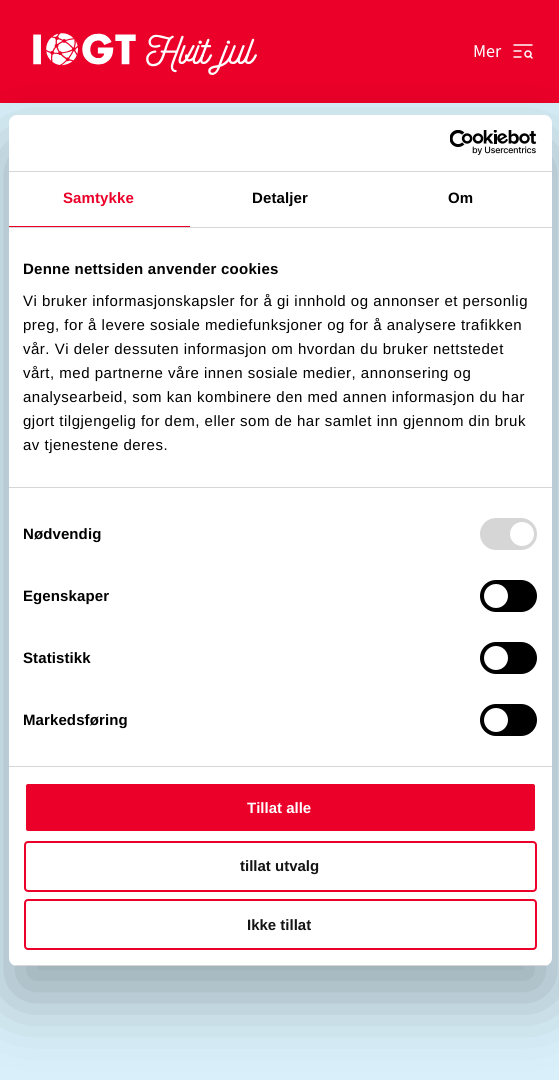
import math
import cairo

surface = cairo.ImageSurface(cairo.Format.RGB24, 559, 1080)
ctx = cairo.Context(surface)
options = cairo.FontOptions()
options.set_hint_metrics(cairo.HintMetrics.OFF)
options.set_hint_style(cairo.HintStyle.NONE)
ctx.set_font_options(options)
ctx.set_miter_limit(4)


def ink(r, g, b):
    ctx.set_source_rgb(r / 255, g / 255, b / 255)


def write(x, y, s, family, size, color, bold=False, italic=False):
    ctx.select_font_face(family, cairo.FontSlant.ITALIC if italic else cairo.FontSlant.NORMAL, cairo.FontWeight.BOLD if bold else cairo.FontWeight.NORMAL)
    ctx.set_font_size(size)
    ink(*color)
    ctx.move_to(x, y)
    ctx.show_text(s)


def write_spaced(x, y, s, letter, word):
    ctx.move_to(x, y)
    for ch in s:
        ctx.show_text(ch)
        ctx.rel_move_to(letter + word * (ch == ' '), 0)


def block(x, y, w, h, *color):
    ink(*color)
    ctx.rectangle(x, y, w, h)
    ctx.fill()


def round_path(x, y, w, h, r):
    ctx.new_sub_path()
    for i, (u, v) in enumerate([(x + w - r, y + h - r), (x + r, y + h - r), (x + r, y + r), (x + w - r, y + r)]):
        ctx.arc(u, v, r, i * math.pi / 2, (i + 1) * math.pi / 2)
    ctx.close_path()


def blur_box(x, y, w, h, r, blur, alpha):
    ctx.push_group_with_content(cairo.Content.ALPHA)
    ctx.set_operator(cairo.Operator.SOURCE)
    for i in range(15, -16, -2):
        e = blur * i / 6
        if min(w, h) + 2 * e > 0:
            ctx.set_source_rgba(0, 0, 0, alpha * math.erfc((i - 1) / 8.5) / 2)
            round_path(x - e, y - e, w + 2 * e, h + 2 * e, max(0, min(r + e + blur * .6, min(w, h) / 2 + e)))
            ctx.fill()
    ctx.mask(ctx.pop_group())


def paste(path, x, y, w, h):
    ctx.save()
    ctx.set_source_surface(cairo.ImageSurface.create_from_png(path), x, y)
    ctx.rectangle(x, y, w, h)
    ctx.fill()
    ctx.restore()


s1 = dict(family="Source Sans 3", size=18, color=(255, 255, 255))
s2 = dict(family="Liberation Sans", size=15, color=(255, 255, 255), bold=True)
s3 = dict(family="Liberation Sans", size=15, color=(20, 20, 20), bold=True)

ink(217, 240, 250)
ctx.paint()
block(0, 0, 559, 103, 235, 0, 41)
paste("pic1.png", 33, 33, 224, 42)
write(473, 57, "Mer", **s1)
paste("pic2.png", 513, 44, 20, 15)
ink(0, 0, 0)
blur_box(9, 147, 543, 851, 8, 34, 0.3)
ink(255, 255, 255)
round_path(9, 115, 543, 851, 8)
ctx.fill()
block(9, 171, 543, 1, 214, 214, 214)
paste("pic3.png", 450, 130, 87, 25)
block(9, 227, 543, 1, 214, 214, 214)
block(9, 226, 181, 1, 235, 0, 41)
ctx.select_font_face("Liberation Sans", cairo.FontSlant.NORMAL, cairo.FontWeight.BOLD)
ctx.set_font_size(15)
write_spaced(63, 203, "Samtykke", 0.1, 0)
ink(0, 0, 0)
write_spaced(252, 203, "Detaljer", 0.1, 0)
write_spaced(448, 203, "Om", 0.1, 0)
block(9, 487, 543, 1, 214, 214, 214)
ink(0, 0, 0)
write_spaced(23, 274, "Denne nettsiden anvender cookies", 0.25, 0)
ctx.select_font_face("Liberation Sans")
write_spaced(23, 306, "Vi bruker informasjonskapsler for å gi innhold og annonser et personlig", 0.5, 0)
write_spaced(23, 330, "preg, for å levere sosiale mediefunksjoner og for å analysere trafikken", 0.5, 0)
write_spaced(23, 354, "vår. Vi deler dessuten informasjon om hvordan du bruker nettstedet", 0.5, 0)
write_spaced(23, 378, "vårt, med partnerne våre innen sosiale medier, annonsering og", 0.5, 0)
write_spaced(23, 402, "analysearbeid, som kan kombinere den med annen informasjon du har", 0.5, 0)
write_spaced(23, 426, "gjort tilgjengelig for dem, eller som de har samlet inn gjennom din bruk", 0.5, 0)
write_spaced(23, 450, "av tjenestene deres.", 0.5, 0)
block(9, 766, 543, 1, 214, 214, 214)
ctx.select_font_face("Liberation Sans", cairo.FontSlant.NORMAL, cairo.FontWeight.BOLD)
ink(0, 0, 0)
write_spaced(23, 539, "Nødvendig", 0.1, 0)
ink(214, 214, 214)
round_path(480, 518, 57, 32, 16)
ctx.fill()
ink(255, 255, 255)
ctx.arc(522, 534, 12, 0, 2 * math.pi)
ctx.fill()
ink(0, 0, 0)
write_spaced(23, 601, "Egenskaper", 0.1, 0)
round_path(480, 580, 57, 32, 16)
ctx.fill()
ink(255, 255, 255)
ctx.arc(496, 596, 12, 0, 2 * math.pi)
ctx.fill()
ink(0, 0, 0)
write_spaced(23, 663, "Statistikk", 0.1, 0)
round_path(480, 642, 57, 32, 16)
ctx.fill()
ink(255, 255, 255)
ctx.arc(496, 658, 12, 0, 2 * math.pi)
ctx.fill()
ink(0, 0, 0)
write_spaced(23, 725, "Markedsføring", 0.1, 0)
round_path(480, 704, 57, 32, 16)
ctx.fill()
ink(255, 255, 255)
ctx.arc(496, 720, 12, 0, 2 * math.pi)
ctx.fill()
ctx.save()
round_path(9, 115, 543, 851, 8)
ctx.clip()
block(9, 965, 543, 1, 214, 214, 214)
ctx.restore()
ink(235, 0, 41)
round_path(25, 783, 511, 49, 3)
ctx.fill_preserve()
ink(255, 255, 255)
ctx.stroke()
write(247, 813, "Tillat alle", **s2)
round_path(25, 842, 511, 49, 3)
ink(235, 0, 41)
ctx.stroke()
write(240, 871, "tillat utvalg", **s3)
round_path(25, 900, 511, 49, 3)
ink(235, 0, 41)
ctx.stroke()
write(247, 930, "Ikke tillat", **s3)
surface.write_to_png("screenshot.png")
